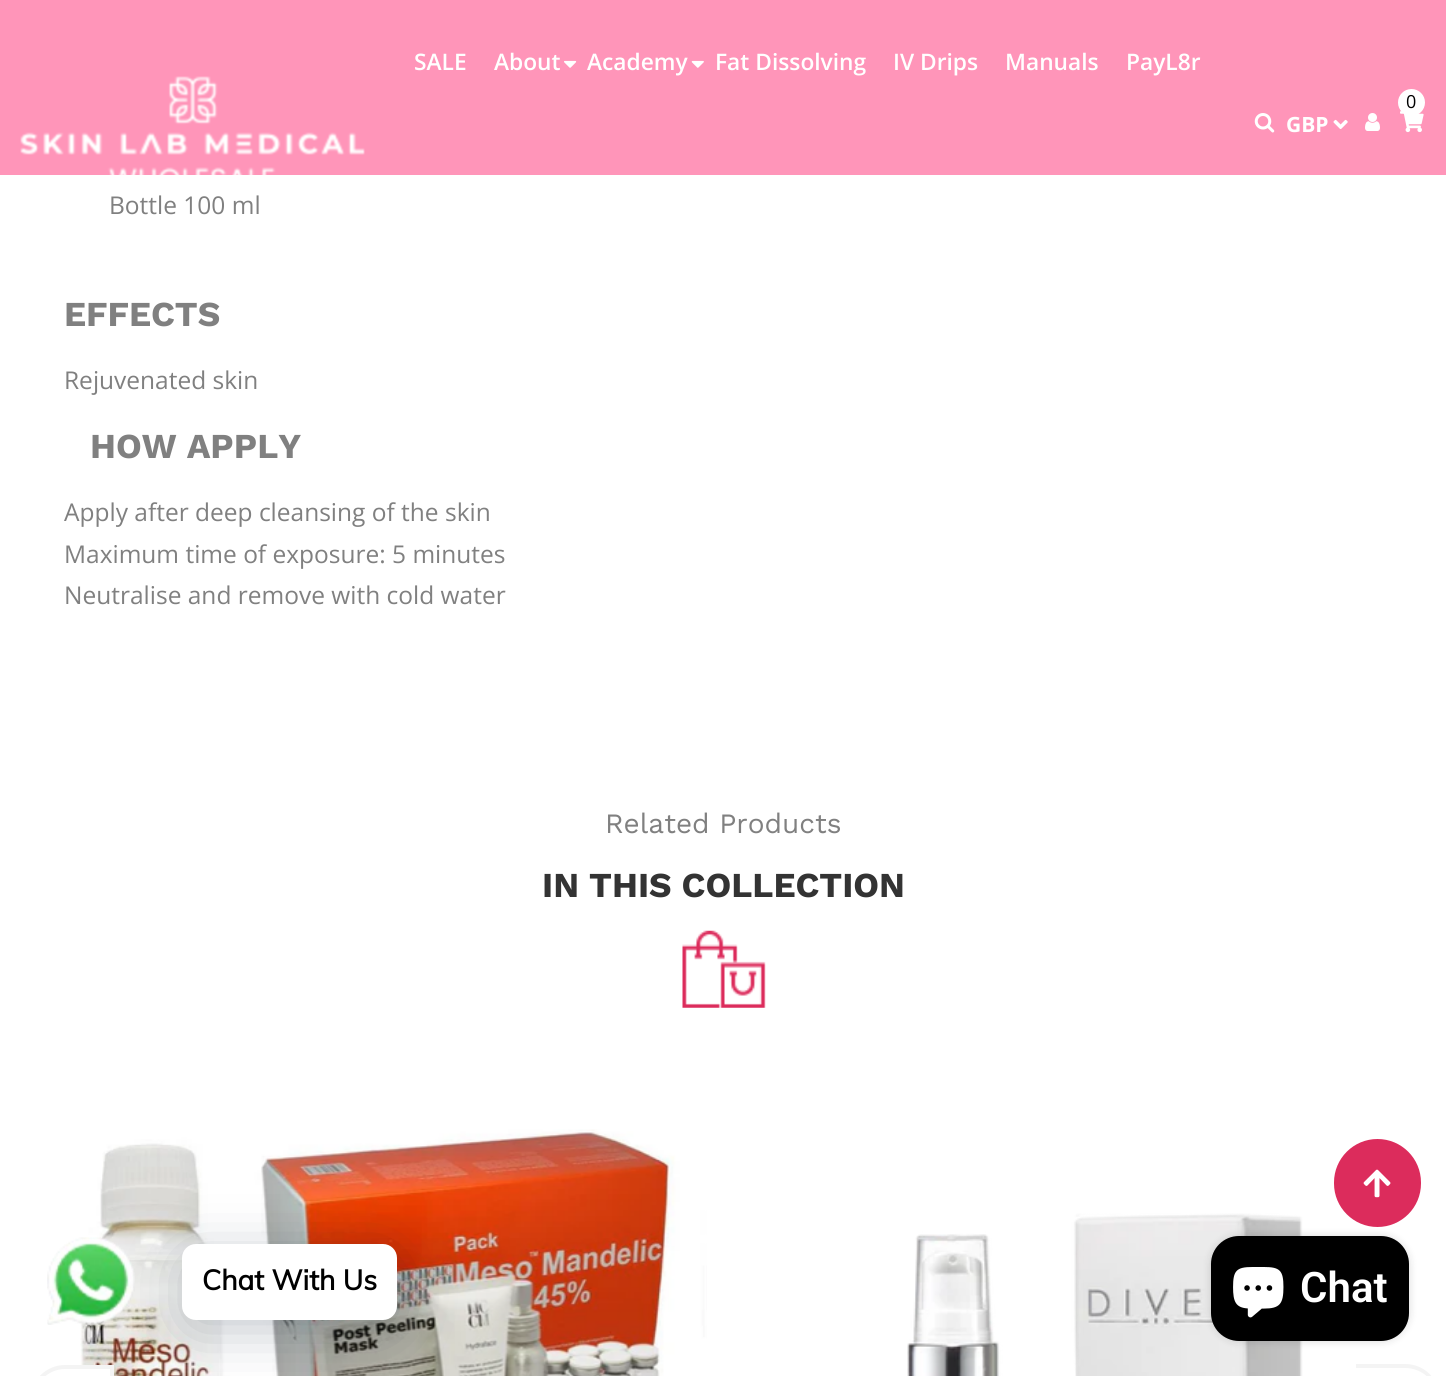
import math
import cairo

surface = cairo.ImageSurface(cairo.Format.RGB24, 1446, 1376)
ctx = cairo.Context(surface)
options = cairo.FontOptions()
options.set_hint_metrics(cairo.HintMetrics.OFF)
options.set_hint_style(cairo.HintStyle.NONE)
ctx.set_font_options(options)
ctx.set_miter_limit(4)


def ink(r, g, b):
    ctx.set_source_rgb(r / 255, g / 255, b / 255)


def write(x, y, s, family, size, color, bold=False, italic=False):
    ctx.select_font_face(family, cairo.FontSlant.ITALIC if italic else cairo.FontSlant.NORMAL, cairo.FontWeight.BOLD if bold else cairo.FontWeight.NORMAL)
    ctx.set_font_size(size)
    ink(*color)
    ctx.move_to(x, y)
    ctx.show_text(s)


def block(x, y, w, h, *color):
    ink(*color)
    ctx.rectangle(x, y, w, h)
    ctx.fill()


def round_path(x, y, w, h, r):
    ctx.new_sub_path()
    for i, (u, v) in enumerate([(x + w - r, y + h - r), (x + r, y + h - r), (x + r, y + r), (x + w - r, y + r)]):
        ctx.arc(u, v, r, i * math.pi / 2, (i + 1) * math.pi / 2)
    ctx.close_path()


def blur_box(x, y, w, h, r, blur, alpha):
    ctx.push_group_with_content(cairo.Content.ALPHA)
    ctx.set_operator(cairo.Operator.SOURCE)
    for i in range(15, -16, -2):
        e = blur * i / 6
        if min(w, h) + 2 * e > 0:
            ctx.set_source_rgba(0, 0, 0, alpha * math.erfc((i - 1) / 8.5) / 2)
            round_path(x - e, y - e, w + 2 * e, h + 2 * e, max(0, min(r + e + blur * .6, min(w, h) / 2 + e)))
            ctx.fill()
    ctx.mask(ctx.pop_group())


def paste(path, x, y, w, h):
    ctx.save()
    ctx.set_source_surface(cairo.ImageSurface.create_from_png(path), x, y)
    ctx.rectangle(x, y, w, h)
    ctx.fill()
    ctx.restore()


s1 = dict(family="Open Sans SemiBold", size=22.75, color=(255, 255, 255))
s2 = dict(family="Open Sans", size=18, color=(0, 0, 0))
s3 = dict(family="Open Sans", size=21, color=(255, 255, 255), bold=True)
s4 = dict(family="Open Sans", size=24.5, color=(128, 128, 128))
s5 = dict(family="Work Sans", size=35, color=(128, 128, 128), bold=True)
s6 = dict(family="Work Sans", size=28, color=(128, 128, 128))
s7 = dict(family="Work Sans", size=35, color=(51, 51, 51), bold=True)
s8 = dict(family="Muli", size=28, color=(0, 0, 0), bold=True)
s9 = dict(family="Roboto SemiBold", size=42, color=(255, 255, 255))

ink(255, 255, 255)
ctx.paint()
block(0, 0, 1446, 175, 255, 149, 185)
write(414, 70, "SALE", **s1)
write(494, 70, "About", **s1)
paste("pic1.png", 564, 60, 13, 8)
write(587, 70, "Academy", **s1)
paste("pic2.png", 691, 60, 13, 8)
write(715, 70, "Fat Dissolving", **s1)
write(893, 70, "IV Drips", **s1)
write(1005, 70, "Manuals", **s1)
write(1126, 70, "PayL8r", **s1)
paste("pic3.png", 20, 76, 345, 99)
paste("pic4.png", 1400, 111, 24, 22)
ctx.arc(1411.5, 102.5, 13.5, 0, 2 * math.pi)
ctx.fill()
write(1406, 108, "0", **s2)
paste("pic5.png", 1254, 113, 21, 20)
write(1286, 132, "GBP", **s3)
paste("pic6.png", 1333, 119, 15, 10)
paste("pic7.png", 1365, 113, 15, 18)
write(109, 214, "Bottle 100 ml", **s4)
write(64, 326, "EFFECTS", **s5)
write(64, 389, "Rejuvenated skin", **s4)
write(90, 458, "HOW APPLY", **s5)
write(64, 521, "Apply after deep cleansing of the skin", **s4)
write(64, 563, "Maximum time of exposure: 5 minutes", **s4)
write(64, 604, "Neutralise and remove with cold water", **s4)
write(605, 833, "Related Products", **s6)
write(542, 897, "IN THIS COLLECTION", **s7)
paste("pic8.png", 682, 930, 84, 78)
paste("pic9.png", 80, 1129, 627, 247)
paste("pic10.png", 907, 1213, 396, 163)
ink(255, 255, 255)
ctx.new_path()
ctx.move_to(65, 1367)
ctx.line_to(112, 1367)
ctx.line_to(112, 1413)
ctx.line_to(65, 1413)
ctx.curve_to(47, 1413, 32, 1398, 32, 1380)
ctx.line_to(32, 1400)
ctx.curve_to(32, 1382, 47, 1367, 65, 1367)
ctx.close_path()
ctx.fill_preserve()
ink(244, 244, 244)
ctx.set_line_width(4)
ctx.stroke()
ctx.set_fill_rule(cairo.FillRule.EVEN_ODD)
ctx.new_path()
ctx.move_to(1356, 1364)
ctx.line_to(1405, 1364)
ctx.curve_to(1425, 1364, 1440, 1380, 1440, 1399)
ctx.curve_to(1440, 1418, 1425, 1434, 1405, 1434)
ctx.line_to(1356, 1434)
ctx.close_path()
ctx.move_to(1356, 1368)
ctx.line_to(1405, 1368)
ctx.curve_to(1423, 1368, 1437, 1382, 1437, 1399)
ctx.curve_to(1437, 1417, 1423, 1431, 1405, 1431)
ctx.line_to(1356, 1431)
ctx.close_path()
ctx.fill()
ink(220, 44, 92)
round_path(1334, 1139, 87, 88, 43.5)
ctx.fill()
paste("pic11.png", 1363, 1169, 28, 29)
paste("pic12.png", 47, 1237, 88, 88)
ink(0, 18, 46)
blur_box(182, 1255, 215, 75, 14, 28, 0.24)
ink(255, 255, 255)
round_path(182, 1244, 215, 76, 14)
ctx.fill()
write(202, 1290, "Chat With Us", **s8)
ink(0, 0, 0)
blur_box(1211, 1236, 198, 105, 28, 4.5, 0.15)
ink(0, 0, 0)
round_path(1211, 1236, 198, 105, 28)
ctx.fill()
paste("pic13.png", 1233, 1267, 51, 51)
write(1300, 1302, "Chat", **s9)
surface.write_to_png("screenshot.png")
